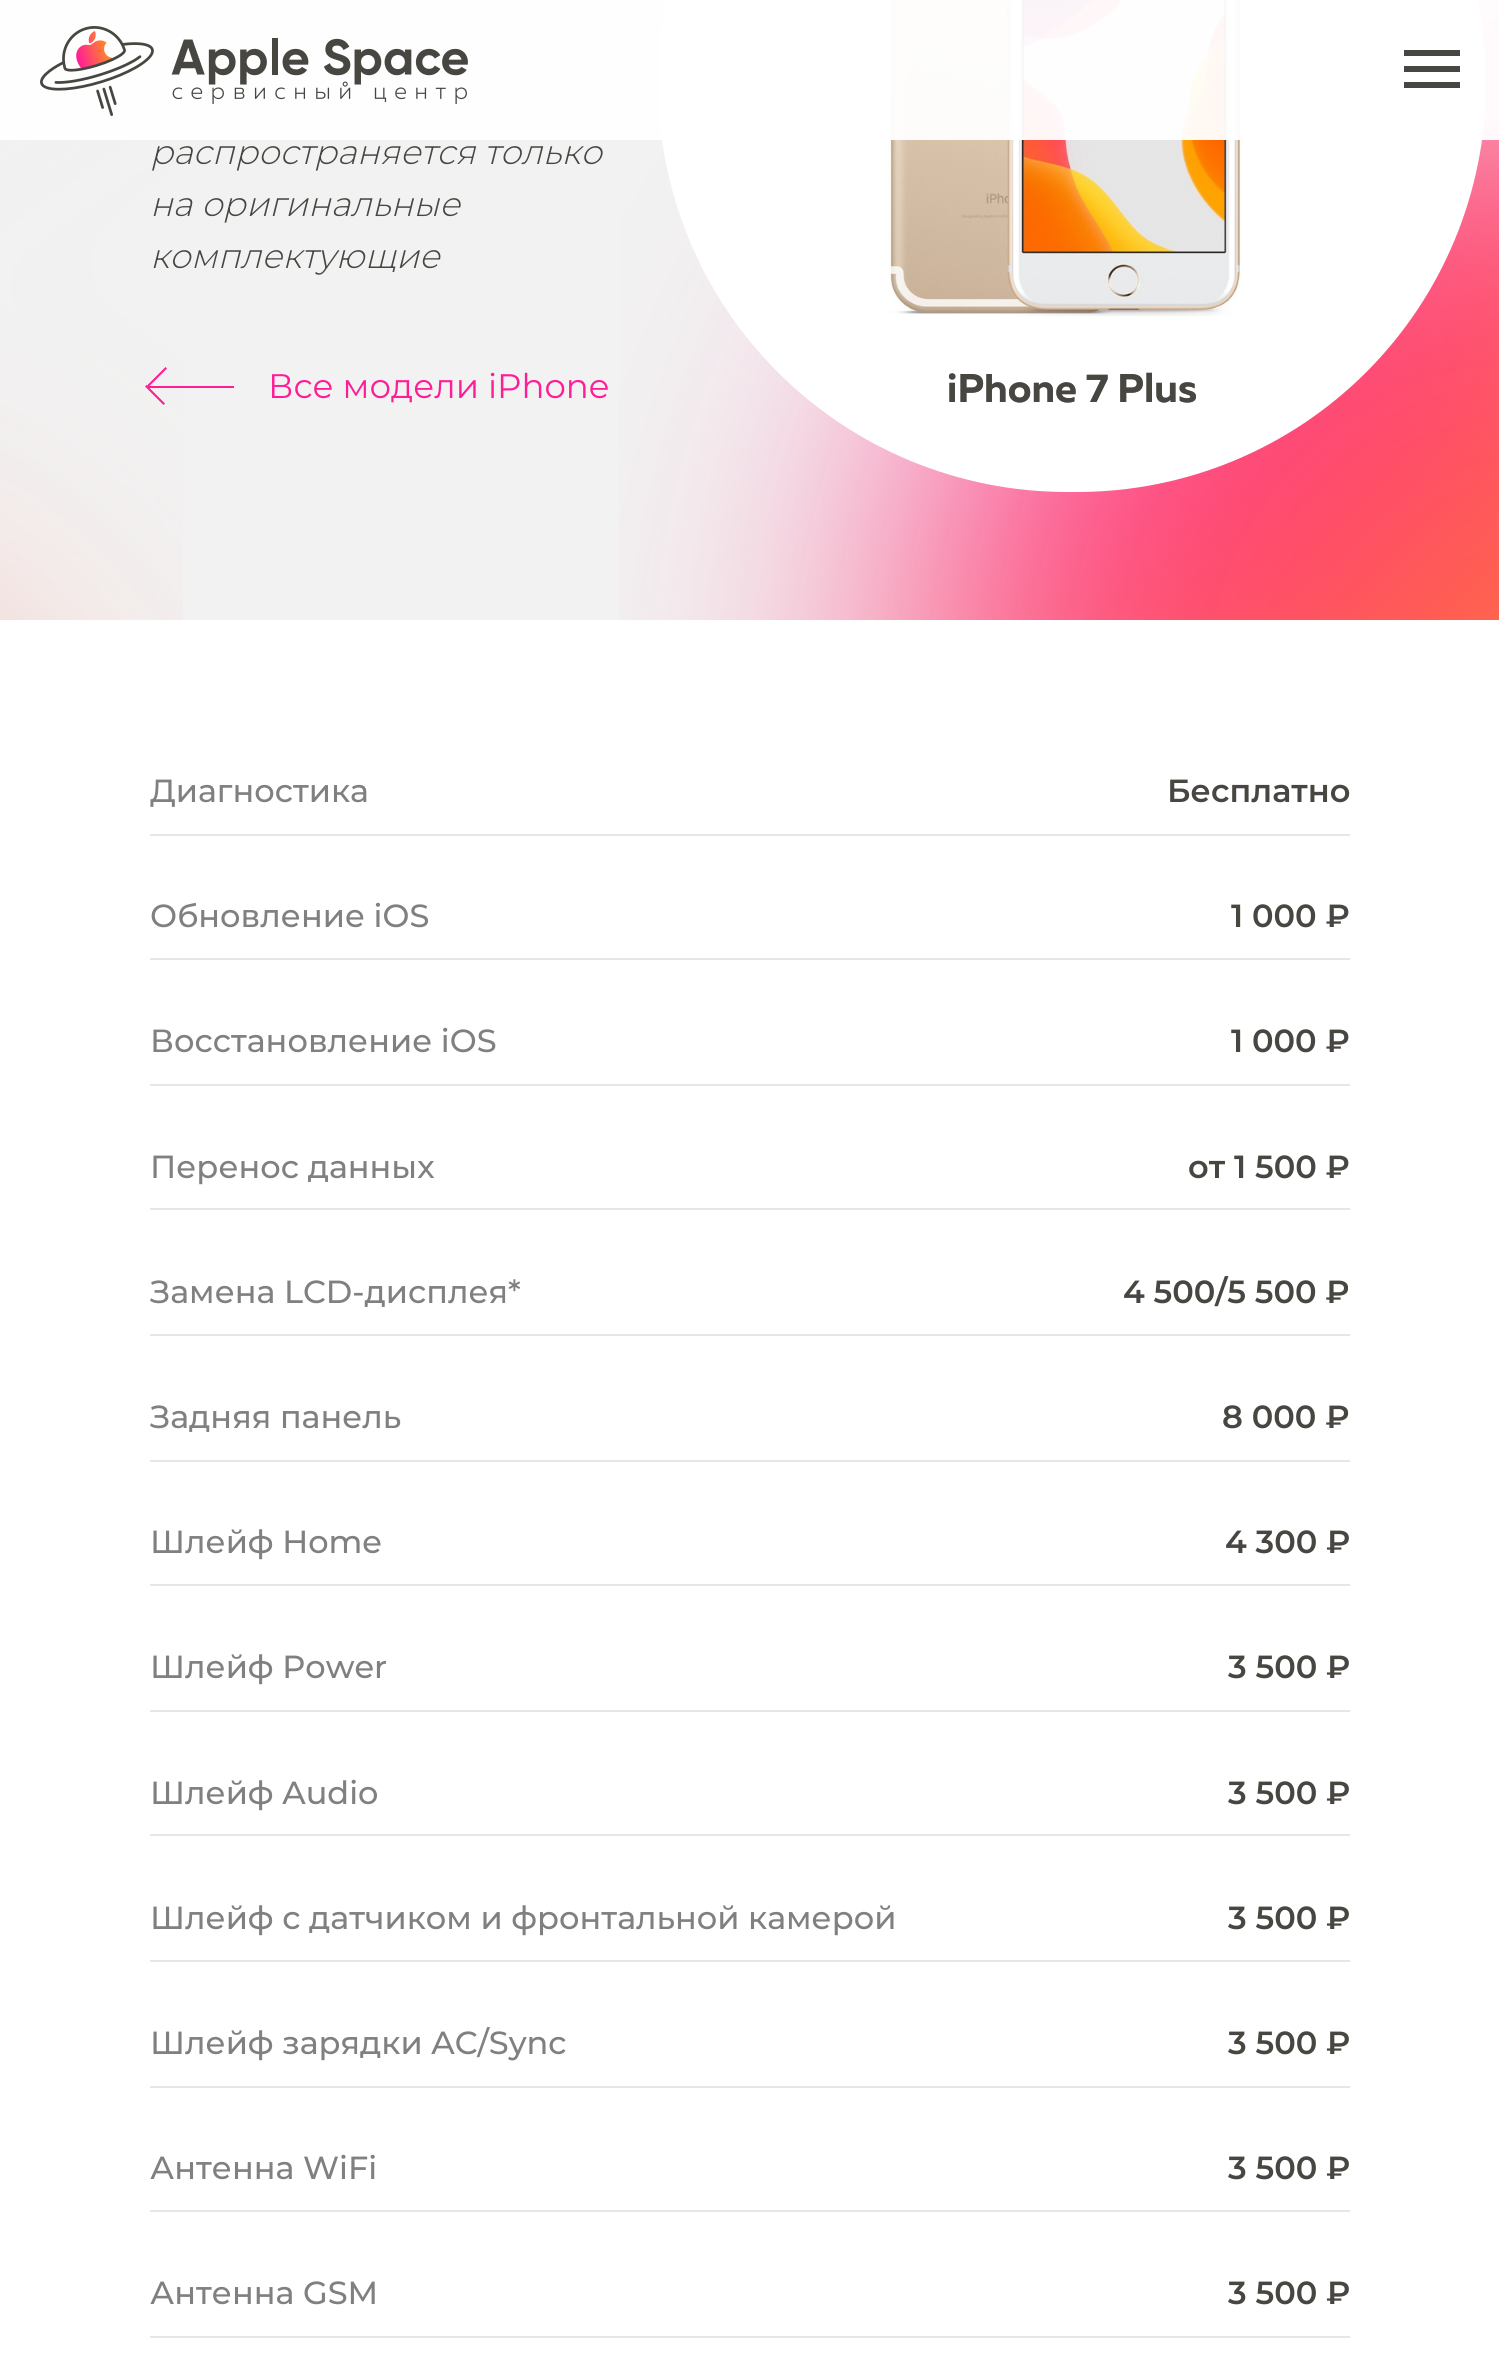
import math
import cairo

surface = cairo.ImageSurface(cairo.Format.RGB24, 1499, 2362)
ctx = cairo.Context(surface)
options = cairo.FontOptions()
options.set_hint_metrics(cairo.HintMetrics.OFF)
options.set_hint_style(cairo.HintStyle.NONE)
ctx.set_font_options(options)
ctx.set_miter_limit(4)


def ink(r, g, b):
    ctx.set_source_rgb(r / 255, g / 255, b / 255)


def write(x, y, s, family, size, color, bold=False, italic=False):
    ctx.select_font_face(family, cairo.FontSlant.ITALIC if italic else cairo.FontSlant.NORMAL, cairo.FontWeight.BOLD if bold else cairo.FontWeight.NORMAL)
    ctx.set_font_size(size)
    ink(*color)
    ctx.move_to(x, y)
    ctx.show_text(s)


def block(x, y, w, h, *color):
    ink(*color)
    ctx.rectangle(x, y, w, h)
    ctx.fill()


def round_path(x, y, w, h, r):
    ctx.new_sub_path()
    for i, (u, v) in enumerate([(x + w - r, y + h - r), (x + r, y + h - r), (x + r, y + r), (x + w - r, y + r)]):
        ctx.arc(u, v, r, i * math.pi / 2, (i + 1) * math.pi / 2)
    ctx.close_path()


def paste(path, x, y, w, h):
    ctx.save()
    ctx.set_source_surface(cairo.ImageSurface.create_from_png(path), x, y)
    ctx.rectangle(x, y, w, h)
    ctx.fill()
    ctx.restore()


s1 = dict(family="Montserrat Light", size=34, color=(72, 70, 65), italic=True)
s2 = dict(family="Montserrat", size=34, color=(255, 29, 150))
s3 = dict(family="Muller", size=40, color=(128, 128, 128), bold=True)
s4 = dict(family="Muller", size=40, color=(72, 70, 65), bold=True)
s5 = dict(family="Montserrat Medium", size=32, color=(128, 128, 128))
s6 = dict(family="Montserrat SemiBold", size=32, color=(72, 70, 65))

ink(255, 255, 255)
ctx.paint()
block(0, 0, 1499, 620, 242, 242, 242)
paste("pic2.png", 0, 0, 183, 620)
paste("pic3.png", 619, 0, 880, 620)
ink(255, 255, 255)
round_path(658, -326, 828, 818, 409)
ctx.fill()
paste("pic4.png", 887, 0, 355, 316)
ctx.set_source_rgba(1, 1, 1, 0.95)
ctx.rectangle(0, 0, 1499, 140)
ctx.fill()
paste("pic1.png", 40, 26, 428, 90)
block(1404, 50, 56, 6, 72, 70, 65)
block(1404, 66, 56, 6, 72, 70, 65)
block(1404, 82, 56, 6, 72, 70, 65)
write(150, 164, "распространяется только", **s1)
write(150, 216, "на оригинальные", **s1)
write(150, 268, "комплектующие", **s1)
block(148, 386, 86, 2, 255, 29, 150)
ctx.new_path()
ctx.move_to(146.5, 385)
ctx.line_to(165, 403.5)
ctx.line_to(163.5, 405)
ctx.line_to(145, 386.5)
ctx.close_path()
ctx.fill()
ctx.new_path()
ctx.move_to(167, 368.5)
ctx.line_to(148.5, 387)
ctx.line_to(147, 385.5)
ctx.line_to(165.5, 367)
ctx.close_path()
ctx.fill()
write(268, 398, "Все модели iPhone", **s2)
write(947, 402, "iPhone 7 Plus", **s3)
write(947, 402, "iPhone 7 Plus", **s4)
write(150, 802, "Диагностика", **s5)
write(1167, 802, "Бесплатно", **s6)
block(150, 834, 1200, 2, 230, 230, 230)
write(150, 927, "Обновление iOS", **s5)
write(1231, 927, "1 000 ₽", **s6)
block(150, 958, 1200, 2, 230, 230, 230)
write(150, 1052, "Восстановление iOS", **s5)
write(1231, 1052, "1 000 ₽", **s6)
block(150, 1084, 1200, 2, 230, 230, 230)
write(150, 1178, "Перенос данных", **s5)
write(1188, 1178, "от 1 500 ₽", **s6)
block(150, 1208, 1200, 2, 230, 230, 230)
write(150, 1303, "Замена LCD-дисплея*", **s5)
write(1123, 1303, "4 500/5 500 ₽", **s6)
block(150, 1334, 1200, 2, 230, 230, 230)
write(150, 1428, "Задняя панель", **s5)
write(1222, 1428, "8 000 ₽", **s6)
block(150, 1460, 1200, 2, 230, 230, 230)
write(150, 1553, "Шлейф Home", **s5)
write(1225, 1553, "4 300 ₽", **s6)
block(150, 1584, 1200, 2, 230, 230, 230)
write(150, 1678, "Шлейф Power", **s5)
write(1228, 1678, "3 500 ₽", **s6)
block(150, 1710, 1200, 2, 230, 230, 230)
write(150, 1804, "Шлейф Audio", **s5)
write(1228, 1804, "3 500 ₽", **s6)
block(150, 1834, 1200, 2, 230, 230, 230)
write(150, 1929, "Шлейф с датчиком и фронтальной камерой", **s5)
write(1228, 1929, "3 500 ₽", **s6)
block(150, 1960, 1200, 2, 230, 230, 230)
write(150, 2054, "Шлейф зарядки AC/Sync", **s5)
write(1228, 2054, "3 500 ₽", **s6)
block(150, 2086, 1200, 2, 230, 230, 230)
write(150, 2179, "Антенна WiFi", **s5)
write(1228, 2179, "3 500 ₽", **s6)
block(150, 2210, 1200, 2, 230, 230, 230)
write(150, 2304, "Антенна GSM", **s5)
write(1228, 2304, "3 500 ₽", **s6)
block(150, 2336, 1200, 2, 230, 230, 230)
surface.write_to_png("screenshot.png")
